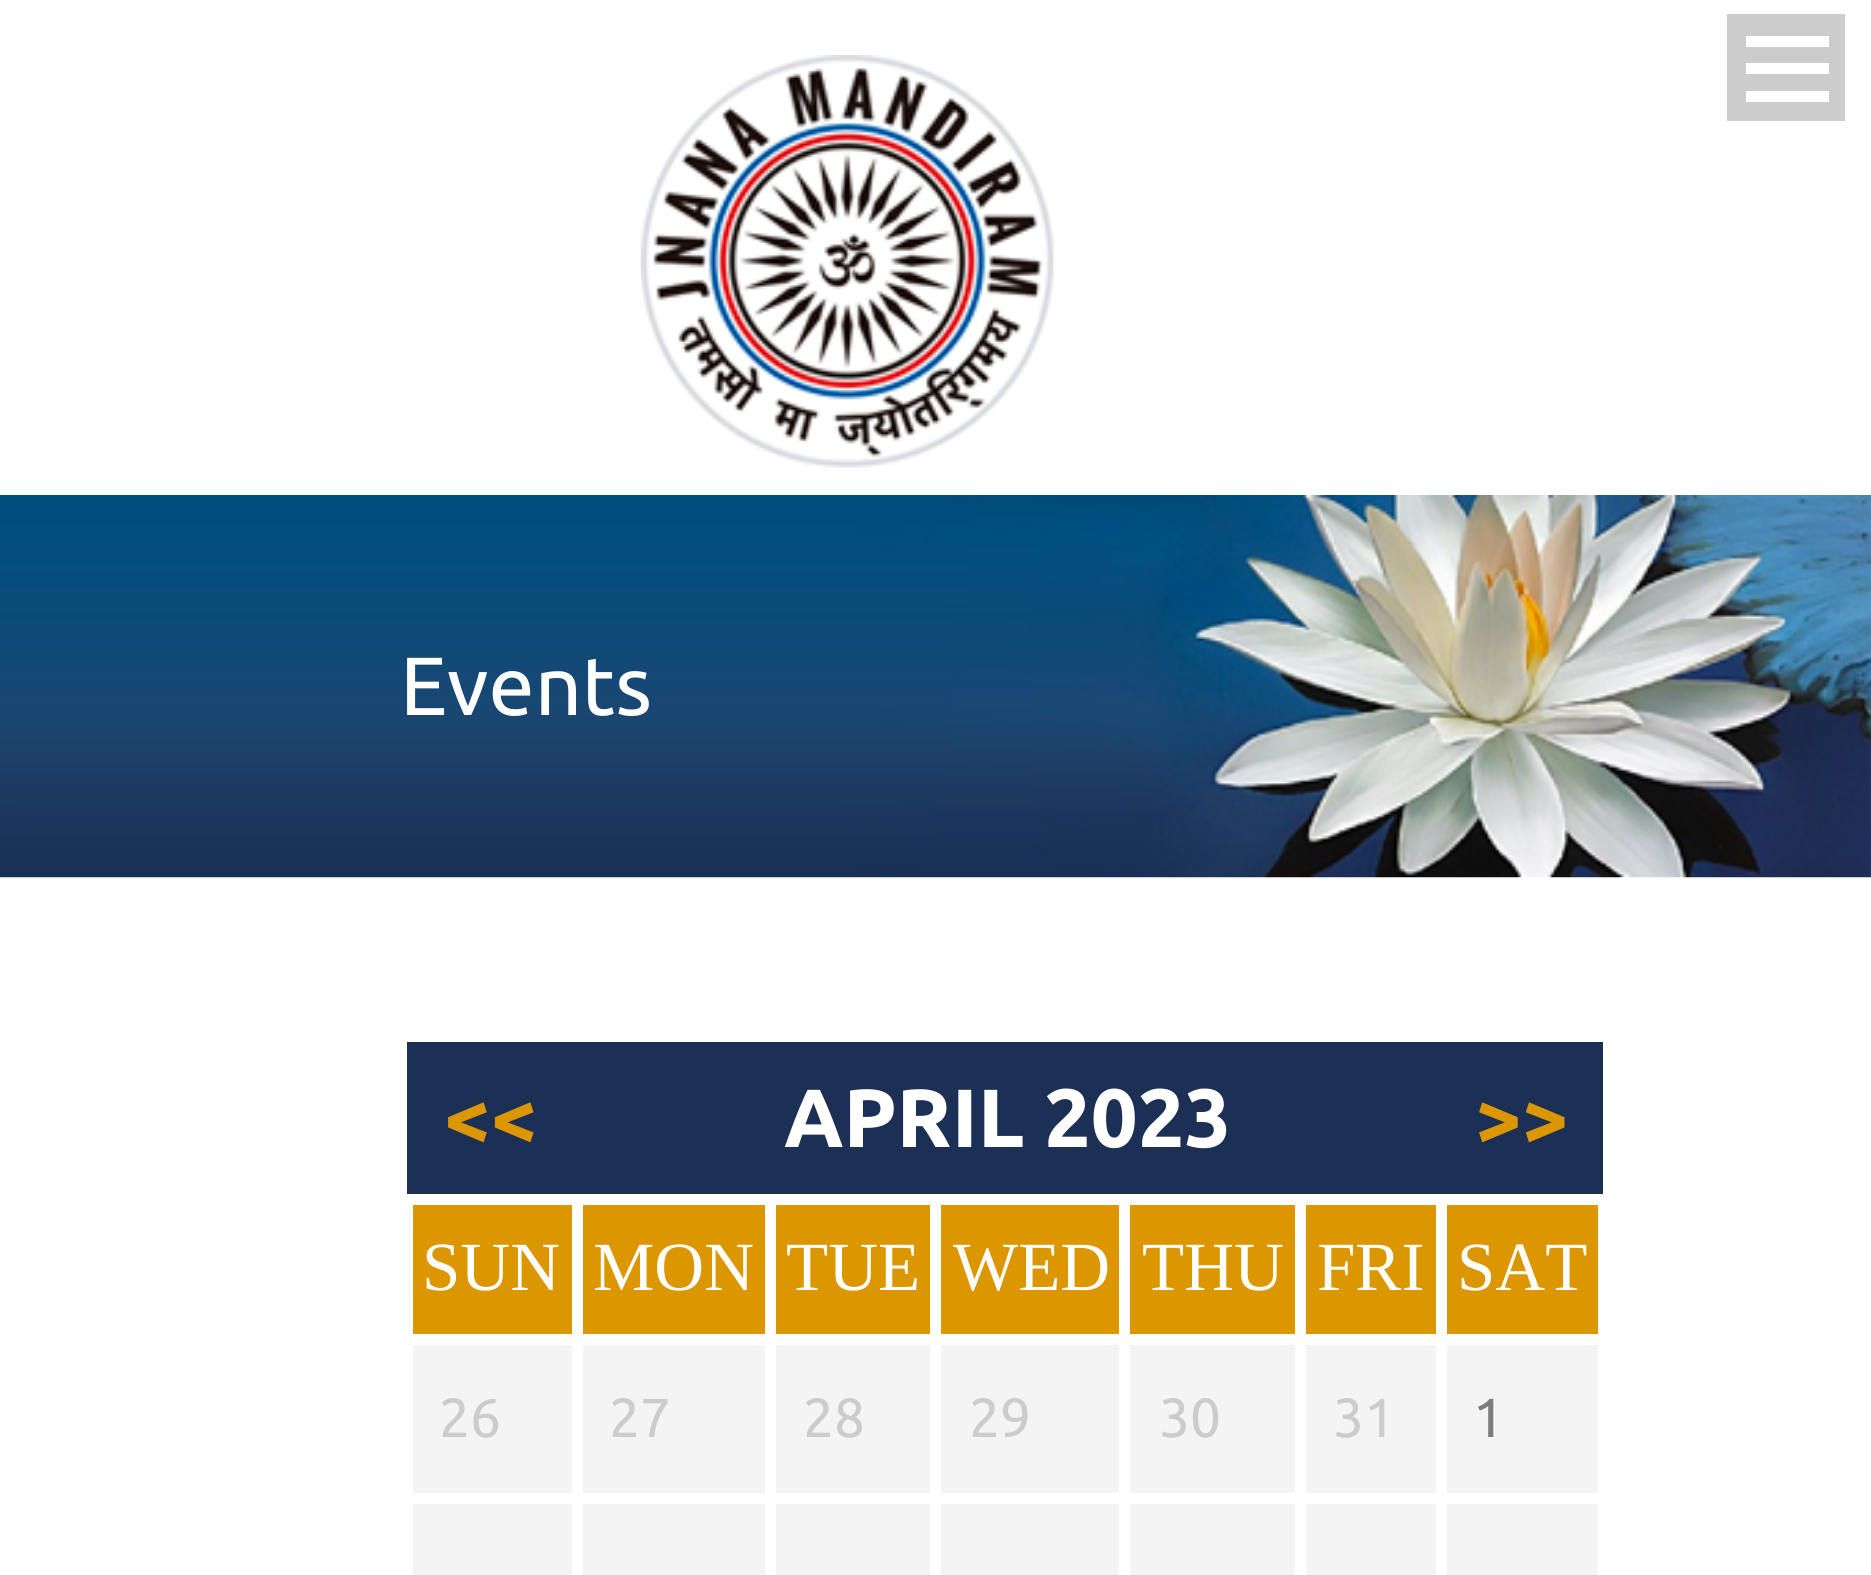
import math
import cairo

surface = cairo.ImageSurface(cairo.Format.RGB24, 1871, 1575)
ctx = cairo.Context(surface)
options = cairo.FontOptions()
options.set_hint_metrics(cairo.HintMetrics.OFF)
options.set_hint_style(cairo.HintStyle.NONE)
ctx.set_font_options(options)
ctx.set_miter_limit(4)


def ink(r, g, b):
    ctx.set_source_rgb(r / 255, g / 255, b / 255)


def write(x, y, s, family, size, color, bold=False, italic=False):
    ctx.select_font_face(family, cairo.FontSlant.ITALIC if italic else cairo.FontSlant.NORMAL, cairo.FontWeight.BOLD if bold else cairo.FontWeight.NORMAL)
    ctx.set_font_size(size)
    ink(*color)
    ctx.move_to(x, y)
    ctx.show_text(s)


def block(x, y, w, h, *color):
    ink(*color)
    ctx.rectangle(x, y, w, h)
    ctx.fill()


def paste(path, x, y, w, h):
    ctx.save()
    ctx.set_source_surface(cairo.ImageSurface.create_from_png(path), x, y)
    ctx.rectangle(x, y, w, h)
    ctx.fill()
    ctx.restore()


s1 = dict(family="Ubuntu", size=82.5, color=(255, 255, 255))
s2 = dict(family="Ubuntu", size=82.5, color=(219, 150, 0), bold=True)
s3 = dict(family="Ubuntu", size=82.5, color=(255, 255, 255), bold=True)
s4 = dict(family="Liberation Serif", size=69, color=(255, 255, 255))
s5 = dict(family="Ubuntu", size=55, color=(204, 204, 204))
s6 = dict(family="Ubuntu", size=55, color=(124, 124, 124))

ink(255, 255, 255)
ctx.paint()
paste("pic1.png", 640, 55, 414, 413)
block(1727, 14, 118, 107, 204, 204, 204)
block(1746, 91, 83, 11, 255, 255, 255)
block(1746, 63, 83, 11, 255, 255, 255)
block(1746, 36, 83, 11, 255, 255, 255)
paste("pic2.png", 0, 495, 1871, 383)
write(400, 715, "Events", **s1)
block(407, 1042, 1196, 152, 28, 48, 85)
write(444, 1147, "<<", **s2)
write(784, 1147, "APRIL 2023", **s3)
write(1475, 1147, ">>", **s2)
block(413, 1205, 159, 129, 219, 150, 0)
write(422, 1290, "SUN", **s4)
block(583, 1205, 182, 129, 219, 150, 0)
write(593, 1290, "MON", **s4)
block(776, 1205, 154, 129, 219, 150, 0)
write(786, 1290, "TUE", **s4)
block(941, 1205, 178, 129, 219, 150, 0)
write(953, 1290, "WED", **s4)
block(1130, 1205, 165, 129, 219, 150, 0)
write(1142, 1290, "THU", **s4)
block(1306, 1205, 130, 129, 219, 150, 0)
write(1317, 1290, "FRI", **s4)
block(1447, 1205, 151, 129, 219, 150, 0)
write(1457, 1290, "SAT", **s4)
block(413, 1345, 159, 148, 244, 244, 244)
write(439, 1437, "26", **s5)
block(583, 1345, 182, 148, 244, 244, 244)
write(609, 1437, "27", **s5)
block(776, 1345, 154, 148, 244, 244, 244)
write(803, 1437, "28", **s5)
block(941, 1345, 178, 148, 244, 244, 244)
write(969, 1437, "29", **s5)
block(1130, 1345, 165, 148, 244, 244, 244)
write(1159, 1437, "30", **s5)
block(1306, 1345, 130, 148, 244, 244, 244)
write(1333, 1437, "31", **s5)
block(1447, 1345, 151, 148, 244, 244, 244)
write(1473, 1437, "1", **s6)
block(413, 1504, 159, 71, 244, 244, 244)
block(583, 1504, 182, 71, 244, 244, 244)
block(776, 1504, 154, 71, 244, 244, 244)
block(941, 1504, 178, 71, 244, 244, 244)
block(1130, 1504, 165, 71, 244, 244, 244)
block(1306, 1504, 130, 71, 244, 244, 244)
block(1447, 1504, 151, 71, 244, 244, 244)
surface.write_to_png("screenshot.png")
